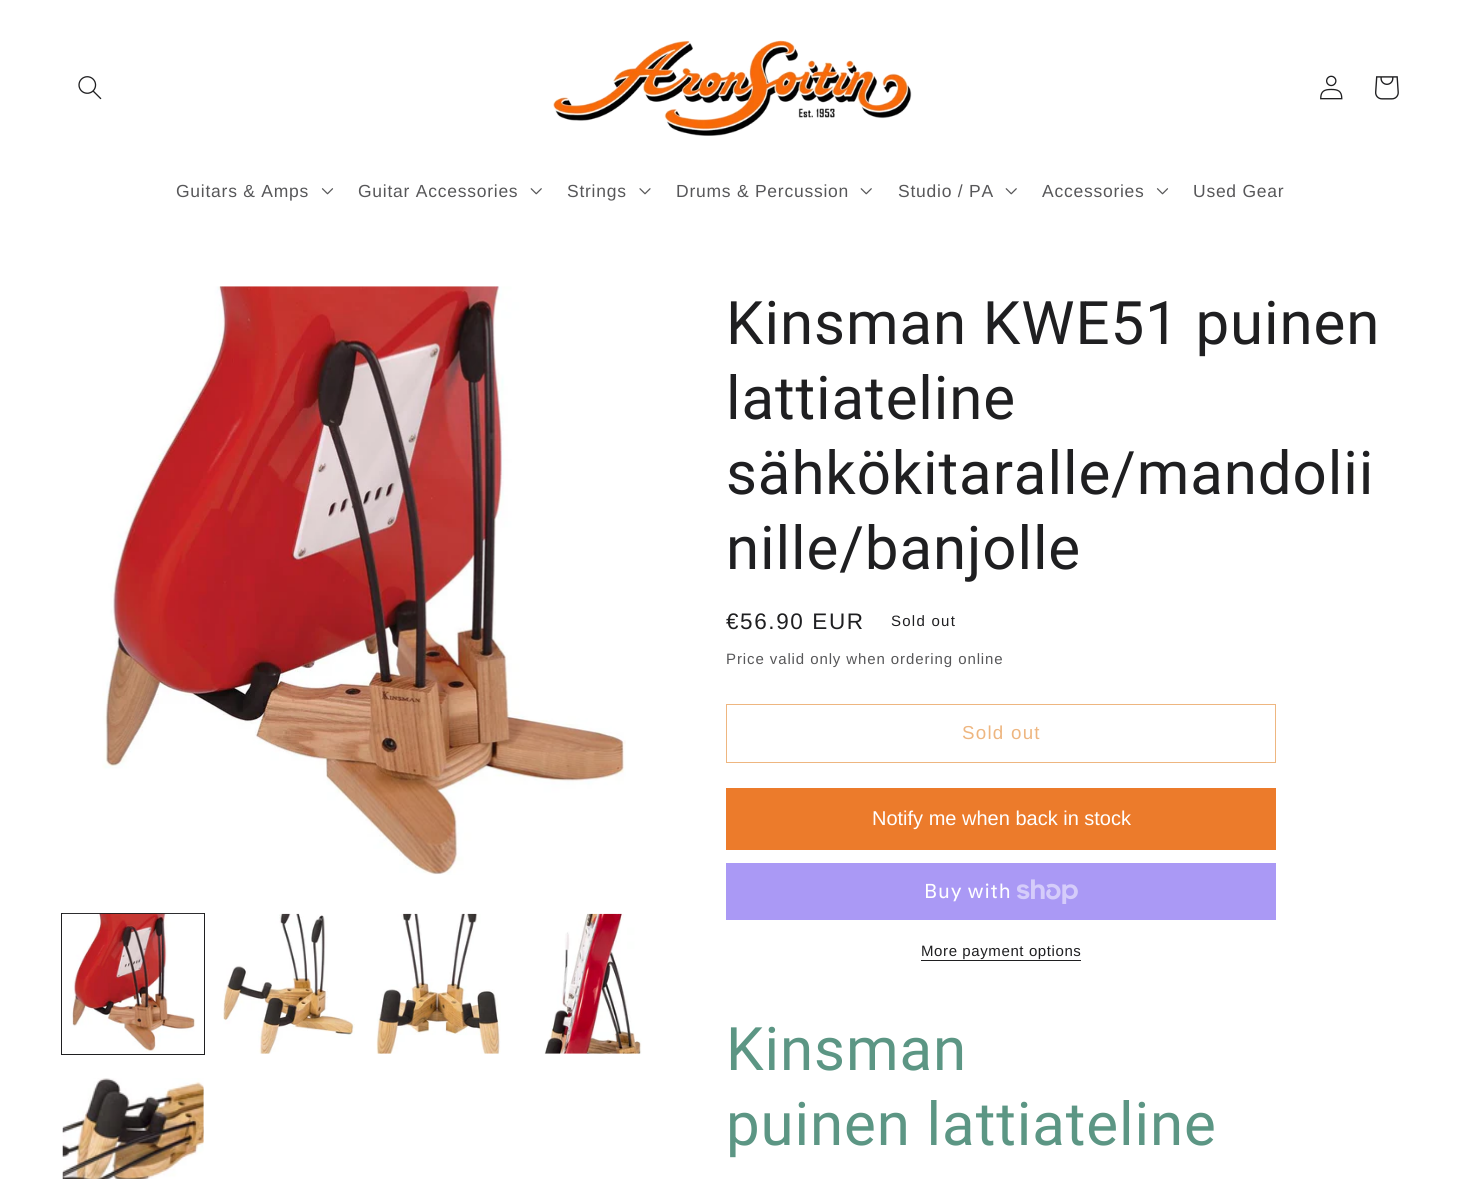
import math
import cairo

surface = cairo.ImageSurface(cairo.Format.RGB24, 1461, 1179)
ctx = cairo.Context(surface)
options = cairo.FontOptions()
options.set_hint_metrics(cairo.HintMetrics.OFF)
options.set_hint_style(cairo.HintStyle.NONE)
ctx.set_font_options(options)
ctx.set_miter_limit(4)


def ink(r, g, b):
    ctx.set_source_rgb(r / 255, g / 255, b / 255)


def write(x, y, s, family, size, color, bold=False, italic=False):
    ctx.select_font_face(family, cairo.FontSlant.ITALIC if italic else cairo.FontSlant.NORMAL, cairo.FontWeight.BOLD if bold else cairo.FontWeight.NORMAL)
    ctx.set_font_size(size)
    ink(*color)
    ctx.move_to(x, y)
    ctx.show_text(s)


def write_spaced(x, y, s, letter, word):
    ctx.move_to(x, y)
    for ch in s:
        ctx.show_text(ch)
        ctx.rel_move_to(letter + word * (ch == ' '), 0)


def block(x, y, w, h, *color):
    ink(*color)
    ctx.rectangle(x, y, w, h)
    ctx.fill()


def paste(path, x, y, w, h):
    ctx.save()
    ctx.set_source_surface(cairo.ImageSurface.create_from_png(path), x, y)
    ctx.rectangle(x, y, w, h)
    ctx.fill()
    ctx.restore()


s1 = dict(family="Liberation Sans", size=20, color=(255, 255, 255))

ink(255, 255, 255)
ctx.paint()
paste("pic1.png", 78, 76, 24, 24)
paste("pic2.png", 553, 40, 359, 96)
paste("pic3.png", 1320, 75, 23, 25)
paste("pic4.png", 1375, 76, 24, 24)
ctx.select_font_face("Liberation Sans")
ctx.set_font_size(17.5)
ink(87, 87, 89)
write_spaced(176, 197, "Guitars & Amps", 0.75, 0)
paste("pic5.png", 321, 188, 13, 7)
write_spaced(358, 197, "Guitar Accessories", 0.75, 0)
paste("pic6.png", 530, 188, 12, 7)
write_spaced(567, 197, "Strings", 0.75, 0)
paste("pic7.png", 639, 188, 12, 7)
write_spaced(676, 197, "Drums & Percussion", 0.75, 0)
paste("pic6.png", 860, 188, 12, 7)
write_spaced(898, 197, "Studio / PA", 0.75, 0)
paste("pic6.png", 1005, 188, 12, 7)
write_spaced(1042, 197, "Accessories", 0.75, 0)
paste("pic5.png", 1156, 188, 13, 7)
write_spaced(1193, 197, "Used Gear", 0.75, 0)
paste("pic8.png", 102, 286, 524, 589)
ctx.rectangle(61.5, 913.5, 143, 141)
ink(31, 31, 33)
ctx.set_line_width(1)
ctx.stroke()
paste("pic9.png", 63, 913, 141, 139)
paste("pic10.png", 223, 913, 132, 141)
paste("pic11.png", 376, 913, 125, 141)
paste("pic12.png", 544, 913, 98, 141)
paste("pic13.png", 62, 1078, 142, 101)
ctx.select_font_face("Roboto")
ctx.set_font_size(60)
write_spaced(726, 344, "Kinsman KWE51 puinen", 0.9, 0)
write_spaced(726, 419, "lattiateline", 0.9, 0)
write_spaced(726, 494, "sähkökitaralle/mandolii", 0.9, 0)
write_spaced(726, 569, "nille/banjolle", 0.9, 0)
ctx.select_font_face("Liberation Sans")
ctx.set_font_size(22.5)
write_spaced(726, 629, "€56.90 EUR", 1.6, 0)
ctx.set_font_size(15)
write_spaced(891, 626, "Sold out", 1.25, 0)
ink(87, 87, 89)
write_spaced(726, 664, "Price valid only when ordering online", 0.9, 0)
ctx.rectangle(726.5, 704.5, 549, 58)
ink(238, 182, 128)
ctx.stroke()
ctx.set_font_size(18.75)
write_spaced(962, 739, "Sold out", 1.25, 0)
block(726, 788, 550, 62, 236, 123, 43)
write(872, 825, "Notify me when back in stock", **s1)
block(726, 863, 550, 57, 170, 153, 245)
ctx.select_font_face("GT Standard")
ink(255, 255, 255)
write_spaced(924, 898, "Buy with", 0.75, 0)
paste("pic14.png", 1017, 879, 61, 25)
ctx.select_font_face("Liberation Sans")
ctx.set_font_size(15)
ink(31, 31, 33)
write_spaced(921, 956, "More payment options", 0.6, 0)
block(921, 960, 160, 1, 31, 31, 33)
ctx.select_font_face("Roboto")
ctx.set_font_size(60)
ink(92, 150, 132)
write_spaced(726, 1070, "Kinsman", 0.9, 0)
write_spaced(726, 1145, "puinen lattiateline", 0.9, 0)
surface.write_to_png("screenshot.png")
